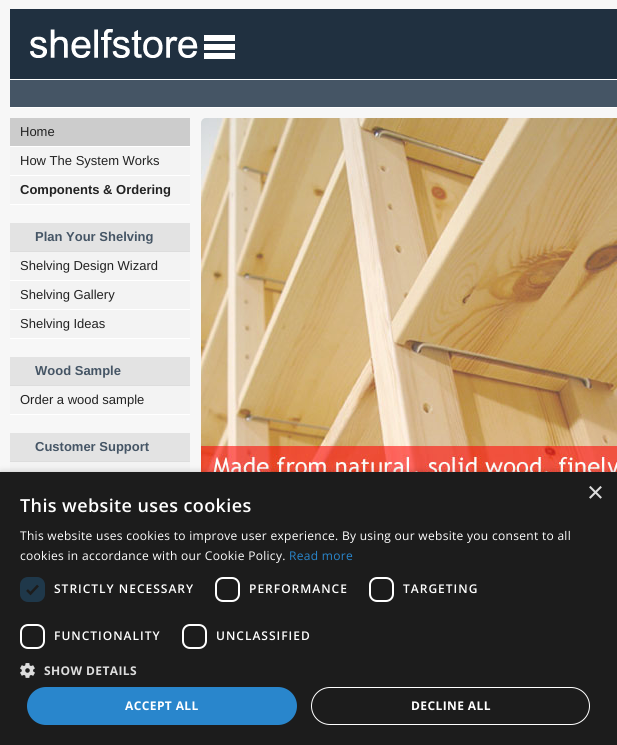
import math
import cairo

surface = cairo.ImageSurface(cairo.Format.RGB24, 617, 745)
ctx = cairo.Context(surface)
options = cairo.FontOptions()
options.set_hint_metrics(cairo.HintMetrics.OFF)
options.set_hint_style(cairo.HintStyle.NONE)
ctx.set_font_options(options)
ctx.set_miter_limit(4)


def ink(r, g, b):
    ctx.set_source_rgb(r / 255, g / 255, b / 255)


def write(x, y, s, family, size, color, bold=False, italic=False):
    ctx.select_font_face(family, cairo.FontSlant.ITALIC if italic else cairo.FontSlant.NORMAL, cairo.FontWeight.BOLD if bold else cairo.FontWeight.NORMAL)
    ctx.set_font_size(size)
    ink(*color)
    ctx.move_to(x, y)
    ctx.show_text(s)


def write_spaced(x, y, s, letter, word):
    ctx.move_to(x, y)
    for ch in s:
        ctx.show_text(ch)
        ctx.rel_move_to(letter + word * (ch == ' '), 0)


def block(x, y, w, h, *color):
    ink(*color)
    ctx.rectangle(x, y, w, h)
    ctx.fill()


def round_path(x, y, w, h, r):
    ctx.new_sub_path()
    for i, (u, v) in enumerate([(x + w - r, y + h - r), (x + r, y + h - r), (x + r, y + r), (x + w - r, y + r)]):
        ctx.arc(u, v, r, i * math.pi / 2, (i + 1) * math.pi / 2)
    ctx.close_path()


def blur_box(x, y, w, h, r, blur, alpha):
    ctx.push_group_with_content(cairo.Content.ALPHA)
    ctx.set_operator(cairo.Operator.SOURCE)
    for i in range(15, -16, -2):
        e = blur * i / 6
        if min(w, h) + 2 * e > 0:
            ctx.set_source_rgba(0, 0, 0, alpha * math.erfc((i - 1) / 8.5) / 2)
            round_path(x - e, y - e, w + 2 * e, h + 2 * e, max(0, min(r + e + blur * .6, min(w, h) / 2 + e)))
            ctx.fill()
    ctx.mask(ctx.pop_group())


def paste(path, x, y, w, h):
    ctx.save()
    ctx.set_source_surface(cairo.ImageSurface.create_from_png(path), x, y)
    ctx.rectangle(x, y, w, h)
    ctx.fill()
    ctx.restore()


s1 = dict(family="Liberation Sans", size=13, color=(34, 34, 34))
s2 = dict(family="Liberation Sans", size=13, color=(34, 34, 34), bold=True)
s3 = dict(family="Liberation Sans", size=13, color=(69, 85, 101), bold=True)
s4 = dict(family="Liberation Sans", size=29, color=(221, 221, 221))

ink(247, 247, 247)
ctx.paint()
block(10, 9, 607, 70, 32, 48, 64)
paste("pic1.png", 30, 29, 205, 30)
block(10, 80, 607, 27, 69, 85, 101)
block(10, 79, 607, 1, 255, 255, 255)
block(10, 107, 607, 1, 255, 255, 255)
block(10, 118, 180, 28, 204, 204, 204)
block(10, 146, 180, 1, 255, 255, 255)
write(20, 136, "Home", **s1)
block(10, 147, 180, 28, 243, 243, 243)
block(10, 175, 180, 1, 255, 255, 255)
write(20, 165, "How The System Works", **s1)
block(10, 176, 180, 28, 243, 243, 243)
block(10, 204, 180, 1, 255, 255, 255)
write(20, 194, "Components & Ordering", **s2)
block(10, 223, 180, 28, 227, 227, 227)
block(10, 251, 180, 1, 221, 221, 221)
write(35, 241, "Plan Your Shelving", **s3)
block(10, 252, 180, 28, 243, 243, 243)
block(10, 280, 180, 1, 255, 255, 255)
write(20, 270, "Shelving Design Wizard", **s1)
block(10, 281, 180, 28, 243, 243, 243)
block(10, 309, 180, 1, 255, 255, 255)
write(20, 299, "Shelving Gallery", **s1)
block(10, 310, 180, 28, 243, 243, 243)
block(10, 338, 180, 1, 255, 255, 255)
write(20, 328, "Shelving Ideas", **s1)
block(10, 357, 180, 28, 227, 227, 227)
block(10, 385, 180, 1, 221, 221, 221)
write(35, 375, "Wood Sample", **s3)
block(10, 386, 180, 28, 243, 243, 243)
block(10, 414, 180, 1, 255, 255, 255)
write(20, 404, "Order a wood sample", **s1)
block(10, 433, 180, 28, 227, 227, 227)
block(10, 461, 180, 1, 221, 221, 221)
write(35, 451, "Customer Support", **s3)
block(10, 462, 180, 10, 243, 243, 243)
paste("pic2.png", 201, 118, 416, 354)
ink(0, 0, 0)
blur_box(1, 474, 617, 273, 0, 4, 0.35)
block(0, 472, 617, 273, 28, 28, 28)
write(587, 502, "×", **s4)
ctx.select_font_face("Open Sans SemiBold")
ctx.set_font_size(18)
ink(255, 255, 255)
write_spaced(20, 512, "This website uses cookies", 0.4, 0)
ctx.select_font_face("Open Sans")
ctx.set_font_size(12)
write_spaced(20, 540, "This website uses cookies to improve user experience. By using our website you consent to all", 0.3, 0)
write_spaced(20, 560, "cookies in accordance with our Cookie Policy.", 0.3, 0)
ink(41, 134, 204)
write_spaced(289, 560, "Read more", 0.3, 0)
ink(31, 56, 74)
round_path(20, 577, 25, 25, 8)
ctx.fill()
ctx.new_path()
ctx.move_to(27, 590)
ctx.line_to(30.5, 593.5)
ctx.line_to(38, 585.5)
ink(28, 28, 28)
ctx.set_line_width(2.6)
ctx.stroke()
ctx.select_font_face("Open Sans SemiBold")
ink(255, 255, 255)
write_spaced(54, 593, "STRICTLY NECESSARY", 1, 0)
round_path(216, 578, 23, 23, 7)
ctx.set_line_width(2)
ctx.stroke()
write_spaced(249, 593, "PERFORMANCE", 1, 0)
round_path(370, 578, 23, 23, 7)
ctx.stroke()
write_spaced(403, 593, "TARGETING", 1, 0)
round_path(21, 625, 23, 23, 7)
ctx.stroke()
write_spaced(54, 640, "FUNCTIONALITY", 1, 0)
round_path(183, 625, 23, 23, 7)
ctx.stroke()
write_spaced(216, 640, "UNCLASSIFIED", 1, 0)
paste("pic3.png", 20, 663, 15, 15)
ctx.select_font_face("Open Sans", cairo.FontSlant.NORMAL, cairo.FontWeight.BOLD)
ink(221, 221, 221)
write_spaced(44, 675, "SHOW DETAILS", 0.4, 0)
ink(41, 134, 204)
round_path(27, 687, 270, 38, 19)
ctx.fill()
ink(255, 255, 255)
write_spaced(125, 710, "ACCEPT ALL", 0.4, 0)
round_path(311.5, 687.5, 278, 37, 18.5)
ctx.set_line_width(1)
ctx.stroke()
write_spaced(411, 710, "DECLINE ALL", 0.4, 0)
surface.write_to_png("screenshot.png")
